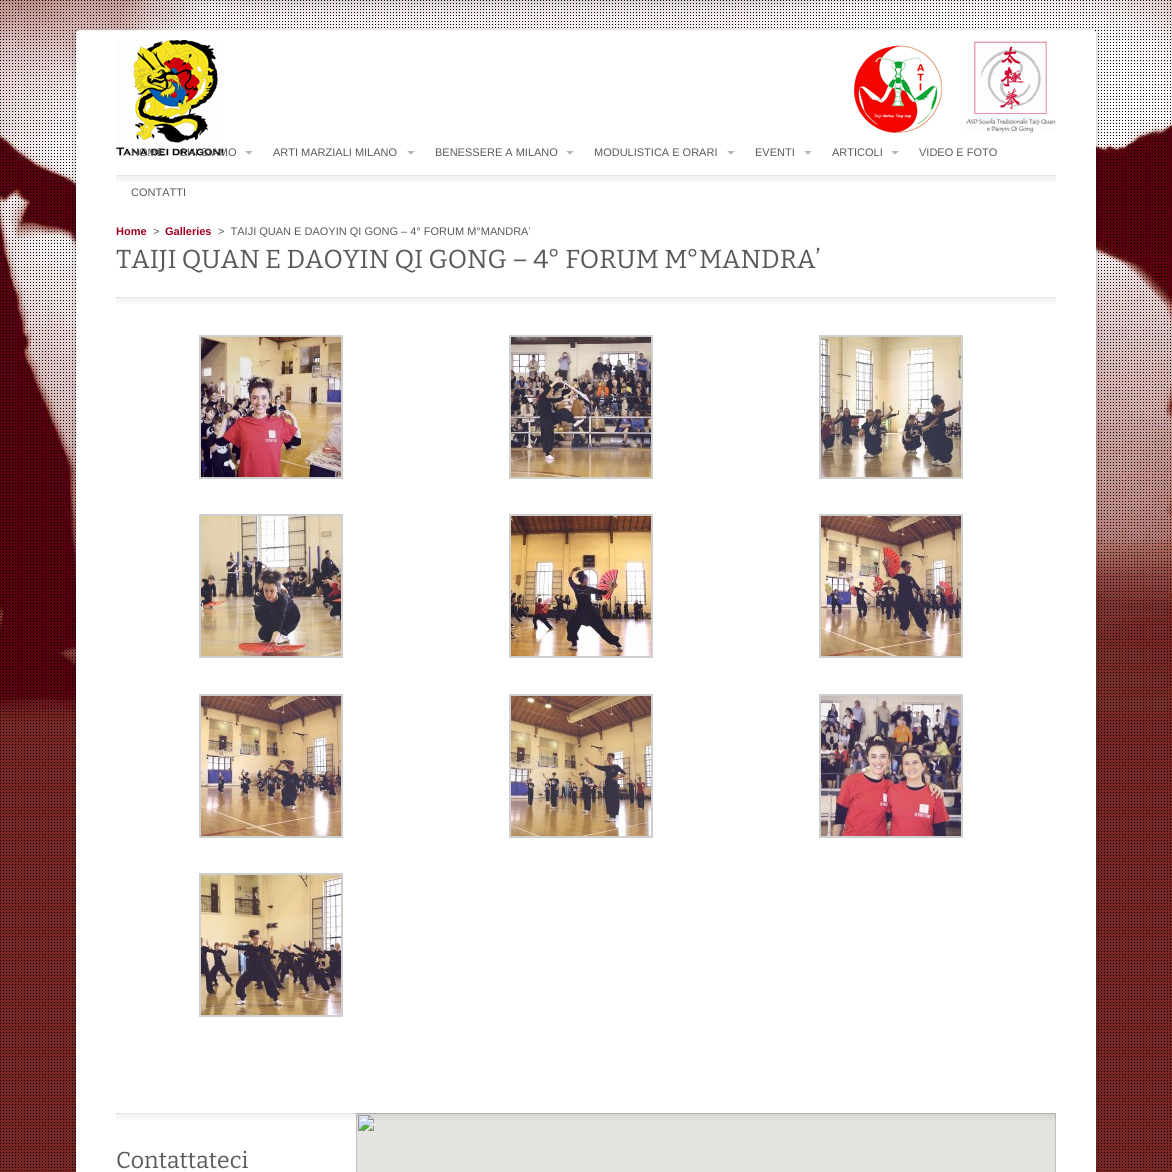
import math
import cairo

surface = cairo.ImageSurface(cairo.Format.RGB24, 1172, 1172)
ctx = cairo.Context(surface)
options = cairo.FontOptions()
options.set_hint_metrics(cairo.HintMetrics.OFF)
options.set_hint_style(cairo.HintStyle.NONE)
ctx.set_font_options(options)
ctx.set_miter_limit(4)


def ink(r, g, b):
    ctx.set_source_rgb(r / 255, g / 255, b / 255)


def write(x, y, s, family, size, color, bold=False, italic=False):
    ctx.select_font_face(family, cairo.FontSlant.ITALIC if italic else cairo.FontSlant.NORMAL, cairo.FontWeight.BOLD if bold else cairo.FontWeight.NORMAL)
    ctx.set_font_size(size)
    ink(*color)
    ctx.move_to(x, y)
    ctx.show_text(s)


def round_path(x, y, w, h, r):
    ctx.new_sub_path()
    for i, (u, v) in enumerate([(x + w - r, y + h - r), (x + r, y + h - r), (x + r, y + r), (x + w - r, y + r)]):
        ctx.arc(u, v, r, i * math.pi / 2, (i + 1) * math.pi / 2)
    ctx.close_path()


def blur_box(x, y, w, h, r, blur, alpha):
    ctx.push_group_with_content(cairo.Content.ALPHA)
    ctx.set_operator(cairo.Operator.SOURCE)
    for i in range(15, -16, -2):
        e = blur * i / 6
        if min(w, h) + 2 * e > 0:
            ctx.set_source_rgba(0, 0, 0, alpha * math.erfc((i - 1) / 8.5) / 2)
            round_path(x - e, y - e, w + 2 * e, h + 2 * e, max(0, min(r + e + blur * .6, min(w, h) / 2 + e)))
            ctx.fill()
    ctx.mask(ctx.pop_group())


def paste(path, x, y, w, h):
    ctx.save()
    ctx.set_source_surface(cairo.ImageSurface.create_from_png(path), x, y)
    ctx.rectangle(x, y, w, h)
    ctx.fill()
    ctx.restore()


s1 = dict(family="Liberation Sans", size=11, color=(89, 89, 89))
s2 = dict(family="Liberation Sans", size=11, color=(161, 2, 31), bold=True)
s3 = dict(family="Bitter Thin", size=26, color=(89, 89, 89))
s4 = dict(family="Bitter Thin", size=23, color=(89, 89, 89))

ink(120, 39, 36)
ctx.paint()
paste("pic1.png", 0, 0, 1172, 778)
paste("pic2.png", 0, 0, 1171, 1171)
ink(0, 0, 0)
blur_box(76, 32, 1020, 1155, 4, 3.5, 0.25)
ink(255, 255, 255)
round_path(76, 30, 1020, 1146, 4)
ctx.fill()
paste("pic3.png", 116, 40, 108, 116)
paste("pic4.png", 853, 45, 89, 88)
paste("pic5.png", 966, 41, 90, 92)
write(131, 156, "HOME", **s1)
paste("pic6.png", 245, 151, 8, 4)
write(179, 156, "CHI SIAMO", **s1)
paste("pic6.png", 407, 151, 8, 4)
write(273, 156, "ARTI MARZIALI MILANO", **s1)
paste("pic6.png", 566, 151, 8, 4)
write(435, 156, "BENESSERE A MILANO", **s1)
paste("pic6.png", 727, 151, 8, 4)
write(594, 156, "MODULISTICA E ORARI", **s1)
paste("pic6.png", 804, 151, 8, 4)
write(755, 156, "EVENTI", **s1)
paste("pic6.png", 891, 151, 8, 4)
write(832, 156, "ARTICOLI", **s1)
write(919, 156, "VIDEO E FOTO", **s1)
write(131, 196, "CONTATTI", **s1)
paste("pic7.png", 116, 175, 940, 7)
write(116, 235, "Home", **s2)
write(153, 235, ">", **s1)
write(165, 235, "Galleries", **s2)
write(218, 235, ">  TAIJI QUAN E DAOYIN QI GONG – 4° FORUM M°MANDRA’", **s1)
write(116, 268, "TAIJI QUAN E DAOYIN QI GONG – 4° FORUM M°MANDRA’", **s3)
paste("pic7.png", 116, 297, 940, 7)
ctx.rectangle(200, 336, 142, 142)
ink(207, 207, 207)
ctx.stroke()
paste("pic8.png", 201, 337, 140, 140)
ctx.rectangle(510, 336, 142, 142)
ctx.stroke()
paste("pic9.png", 511, 337, 140, 140)
ctx.rectangle(820, 336, 142, 142)
ctx.stroke()
paste("pic10.png", 821, 337, 140, 140)
ctx.rectangle(200, 515, 142, 142)
ctx.stroke()
paste("pic11.png", 201, 516, 140, 140)
ctx.rectangle(510, 515, 142, 142)
ctx.stroke()
paste("pic12.png", 511, 516, 140, 140)
ctx.rectangle(820, 515, 142, 142)
ctx.stroke()
paste("pic13.png", 821, 516, 140, 140)
ctx.rectangle(200, 695, 142, 142)
ctx.stroke()
paste("pic14.png", 201, 696, 140, 140)
ctx.rectangle(510, 695, 142, 142)
ctx.stroke()
paste("pic15.png", 511, 696, 140, 140)
ctx.rectangle(820, 695, 142, 142)
ctx.stroke()
paste("pic16.png", 821, 696, 140, 140)
ctx.rectangle(200, 874, 142, 142)
ctx.stroke()
paste("pic17.png", 201, 875, 140, 140)
paste("pic19.png", 356, 1113, 700, 59)
paste("pic18.png", 116, 1113, 940, 7)
write(116, 1168, "Contattateci", **s4)
surface.write_to_png("screenshot.png")
